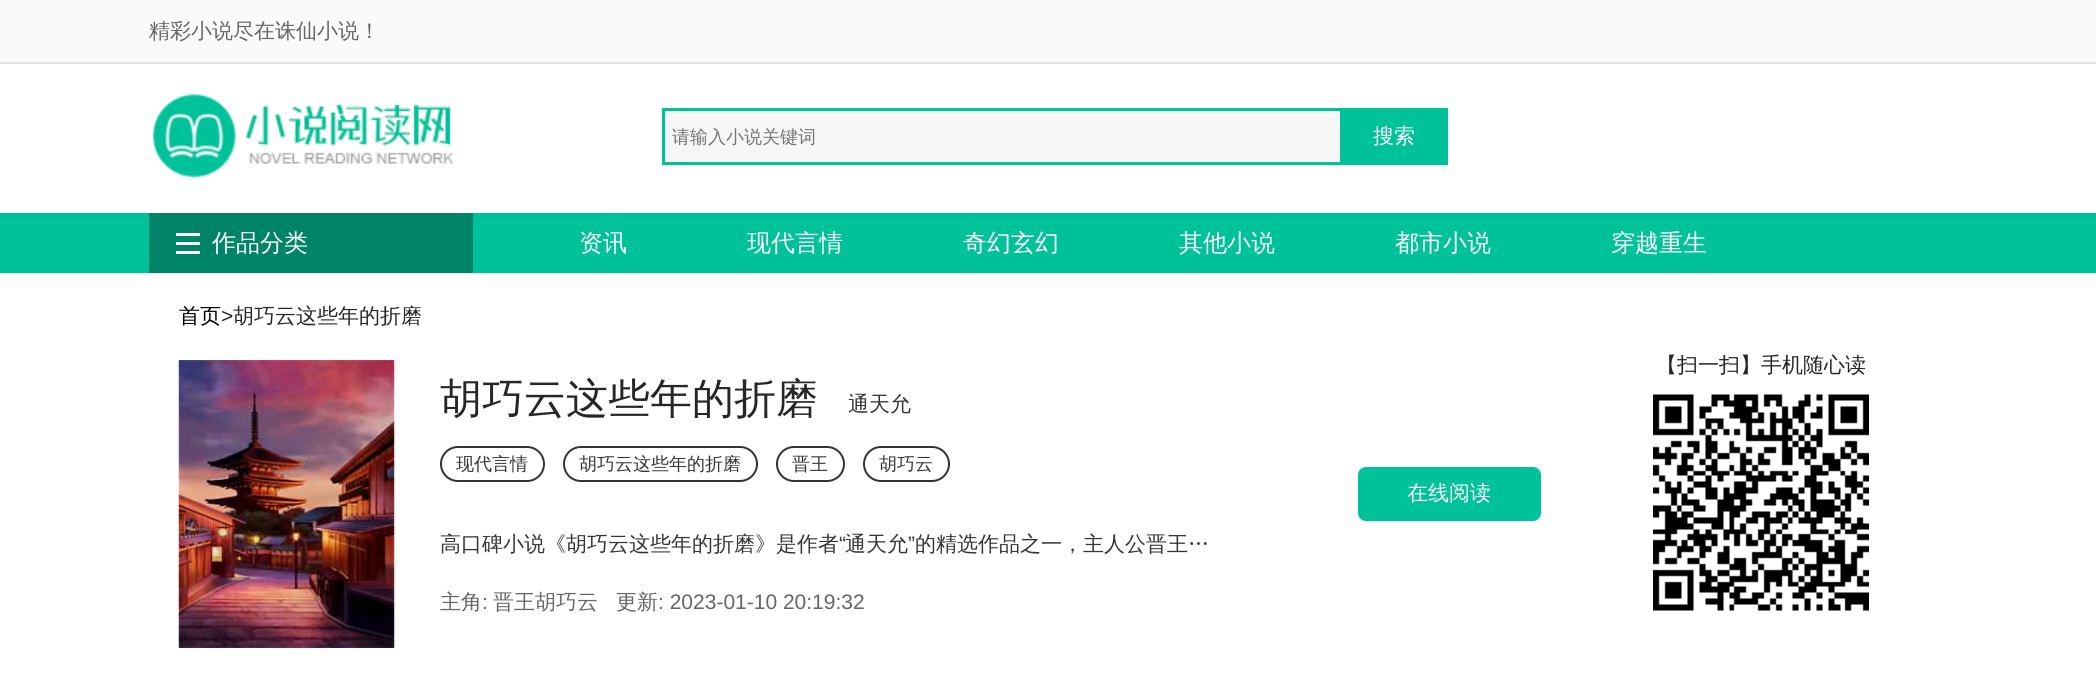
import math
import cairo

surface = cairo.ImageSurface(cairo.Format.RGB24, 2096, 677)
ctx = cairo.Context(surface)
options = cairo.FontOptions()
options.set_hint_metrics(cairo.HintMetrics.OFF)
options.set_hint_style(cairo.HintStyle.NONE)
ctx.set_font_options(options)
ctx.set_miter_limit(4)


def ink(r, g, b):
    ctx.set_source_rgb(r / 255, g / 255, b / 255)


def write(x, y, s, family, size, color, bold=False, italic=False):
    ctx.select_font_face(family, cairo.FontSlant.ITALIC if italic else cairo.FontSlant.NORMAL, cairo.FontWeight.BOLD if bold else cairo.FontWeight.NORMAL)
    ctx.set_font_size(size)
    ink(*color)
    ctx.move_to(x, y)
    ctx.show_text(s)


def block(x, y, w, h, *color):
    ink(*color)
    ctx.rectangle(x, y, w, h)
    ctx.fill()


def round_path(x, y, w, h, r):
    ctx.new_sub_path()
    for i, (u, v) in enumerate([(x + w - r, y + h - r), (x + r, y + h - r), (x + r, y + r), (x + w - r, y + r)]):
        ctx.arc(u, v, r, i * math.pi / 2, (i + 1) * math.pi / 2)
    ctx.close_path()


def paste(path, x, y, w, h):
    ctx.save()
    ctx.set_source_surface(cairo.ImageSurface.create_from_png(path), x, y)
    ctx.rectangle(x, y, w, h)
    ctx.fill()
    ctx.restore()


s1 = dict(family="WenQuanYi Zen Hei Medium", size=21, color=(102, 102, 102))
s2 = dict(family="WenQuanYi Zen Hei Medium", size=18, color=(117, 117, 117))
s3 = dict(family="WenQuanYi Zen Hei Medium", size=21, color=(255, 255, 255))
s4 = dict(family="WenQuanYi Zen Hei Medium", size=24, color=(255, 255, 255))
s5 = dict(family="WenQuanYi Zen Hei Medium", size=21, color=(0, 0, 0))
s6 = dict(family="Liberation Sans", size=21, color=(38, 38, 38))
s7 = dict(family="WenQuanYi Zen Hei Medium", size=21, color=(38, 38, 38))
s8 = dict(family="WenQuanYi Zen Hei Medium", size=42, color=(38, 38, 38))
s9 = dict(family="WenQuanYi Zen Hei Medium", size=21, color=(53, 53, 53))
s10 = dict(family="WenQuanYi Zen Hei Medium", size=18, color=(53, 53, 53))
s11 = dict(family="Liberation Sans", size=21, color=(53, 53, 53))
s12 = dict(family="Liberation Sans", size=21, color=(102, 102, 102))

ink(255, 255, 255)
ctx.paint()
block(0, 0, 2096, 62, 250, 250, 250)
block(0, 62, 2096, 2, 226, 226, 226)
write(149, 38, "精彩小说尽在诛仙小说！", **s1)
paste("pic1.png", 152, 94, 302, 84)
block(665, 111, 675, 51, 246, 246, 246)
block(662, 108, 678, 3, 0, 194, 154)
block(662, 162, 678, 3, 0, 194, 154)
block(662, 108, 3, 57, 0, 194, 154)
write(672, 143, "请输入小说关键词", **s2)
block(1340, 108, 108, 57, 0, 194, 154)
write(1373, 143, "搜索", **s3)
block(0, 213, 2096, 60, 0, 194, 154)
block(149, 213, 324, 60, 0, 132, 105)
block(176, 233, 24, 3, 255, 255, 255)
block(176, 242, 24, 3, 255, 255, 255)
block(176, 251, 24, 3, 255, 255, 255)
write(212, 251, "作品分类", **s4)
write(579, 251, "资讯", **s4)
write(747, 251, "现代言情", **s4)
write(963, 251, "奇幻玄幻", **s4)
write(1179, 251, "其他小说", **s4)
write(1395, 251, "都市小说", **s4)
write(1611, 251, "穿越重生", **s4)
write(179, 323, "首页", **s5)
write(221, 323, ">", **s6)
write(233, 323, "胡巧云这些年的折磨", **s7)
paste("pic2.png", 178, 360, 217, 288)
write(440, 413, "胡巧云这些年的折磨", **s8)
write(848, 411, "通天允", **s9)
round_path(441, 447, 103, 34, 17)
ink(51, 51, 51)
ctx.stroke()
write(456, 470, "现代言情", **s10)
round_path(564, 447, 193, 34, 17)
ink(51, 51, 51)
ctx.stroke()
write(579, 470, "胡巧云这些年的折磨", **s10)
round_path(777, 447, 67, 34, 17)
ink(51, 51, 51)
ctx.stroke()
write(792, 470, "晋王", **s10)
round_path(864, 447, 85, 34, 17)
ink(51, 51, 51)
ctx.stroke()
write(879, 470, "胡巧云", **s10)
write(440, 551, "高口碑小说《胡巧云这些年的折磨》是作者", **s9)
write(839, 551, "“", **s11)
write(845, 551, "通天允", **s9)
write(908, 551, "”", **s11)
write(915, 551, "的精选作品之一，主人公晋王…", **s9)
write(440, 609, "主角", **s1)
write(482, 609, ":", **s12)
write(493, 609, "晋王胡巧云", **s1)
write(616, 609, "更新", **s1)
write(658, 609, ": 2023-01-10 20:19:32", **s12)
ink(0, 194, 154)
round_path(1359, 468, 181, 52, 7)
ctx.fill_preserve()
ctx.stroke()
write(1407, 500, "在线阅读", **s3)
write(1656, 372, "【扫一扫】手机随心读", **s7)
paste("pic3.png", 1653, 394, 216, 217)
surface.write_to_png("screenshot.png")
